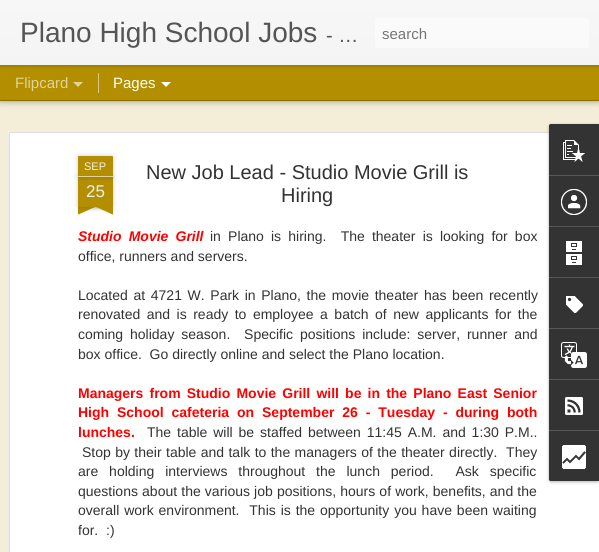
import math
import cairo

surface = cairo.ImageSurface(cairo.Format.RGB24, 599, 552)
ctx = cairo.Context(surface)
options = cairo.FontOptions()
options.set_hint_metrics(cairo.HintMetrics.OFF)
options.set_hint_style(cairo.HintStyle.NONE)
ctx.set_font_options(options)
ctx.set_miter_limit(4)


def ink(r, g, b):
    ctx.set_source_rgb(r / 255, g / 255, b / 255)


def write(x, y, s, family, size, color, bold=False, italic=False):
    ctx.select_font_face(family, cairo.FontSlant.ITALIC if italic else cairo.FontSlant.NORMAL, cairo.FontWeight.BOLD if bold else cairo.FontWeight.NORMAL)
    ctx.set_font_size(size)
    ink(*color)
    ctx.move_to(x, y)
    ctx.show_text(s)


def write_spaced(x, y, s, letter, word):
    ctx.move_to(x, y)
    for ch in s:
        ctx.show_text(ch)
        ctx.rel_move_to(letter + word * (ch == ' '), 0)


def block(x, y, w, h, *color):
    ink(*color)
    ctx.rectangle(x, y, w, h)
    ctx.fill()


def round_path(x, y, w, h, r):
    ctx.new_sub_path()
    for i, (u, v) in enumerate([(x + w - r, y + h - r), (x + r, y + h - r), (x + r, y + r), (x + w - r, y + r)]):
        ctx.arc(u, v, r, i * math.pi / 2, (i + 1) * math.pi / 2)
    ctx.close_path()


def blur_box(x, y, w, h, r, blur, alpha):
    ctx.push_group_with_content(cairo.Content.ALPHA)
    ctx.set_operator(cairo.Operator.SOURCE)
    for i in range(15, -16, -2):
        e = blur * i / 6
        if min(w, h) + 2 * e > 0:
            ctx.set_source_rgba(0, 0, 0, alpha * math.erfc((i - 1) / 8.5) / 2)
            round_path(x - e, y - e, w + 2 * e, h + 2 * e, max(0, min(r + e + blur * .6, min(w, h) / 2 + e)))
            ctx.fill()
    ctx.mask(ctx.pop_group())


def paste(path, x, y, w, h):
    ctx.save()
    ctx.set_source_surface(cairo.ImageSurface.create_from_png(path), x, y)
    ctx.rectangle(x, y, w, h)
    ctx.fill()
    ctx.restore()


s1 = dict(family="Liberation Sans", size=28, color=(85, 85, 85))
s2 = dict(family="Liberation Sans", size=20, color=(85, 85, 85))
s3 = dict(family="Liberation Sans", size=15, color=(117, 117, 117))
s4 = dict(family="Liberation Sans", size=15, color=(225, 210, 153))
s5 = dict(family="Liberation Sans", size=15, color=(255, 255, 255))
s6 = dict(family="Liberation Sans", size=11, color=(238, 238, 238))
s7 = dict(family="Liberation Sans", size=17, color=(238, 238, 238))
s8 = dict(family="Liberation Sans", size=20, color=(51, 51, 51))
s9 = dict(family="Liberation Sans", size=14, color=(51, 51, 51))
s10 = dict(family="Liberation Sans", size=14, color=(255, 0, 0), bold=True)

ink(179, 143, 0)
ctx.paint()
block(0, 101, 599, 451, 244, 238, 217)
ink(0, 0, 0)
blur_box(0, 65, 599, 35, 0, 4, 0.5)
block(0, 65, 599, 35, 179, 143, 0)
block(98, 73, 1, 20, 217, 199, 128)
ink(0, 0, 0)
blur_box(0, 0, 599, 65, 0, 2.5, 0.3)
gradient = cairo.LinearGradient(0, 0, 0, 65)
gradient.add_color_stop_rgba(0, 0.969, 0.969, 0.969, 1)
gradient.add_color_stop_rgba(1, 0.957, 0.957, 0.957, 1)
ctx.set_source(gradient)
ctx.rectangle(0, 0, 599, 65)
ctx.fill()
write(20, 42, "Plano High School Jobs", **s1)
write(326, 42, "- …", **s2)
ink(250, 250, 250)
round_path(375, 18, 214, 30, 3)
ctx.fill()
write(382, 39, "search", **s3)
write(15, 88, "Flipcard", **s4)
ctx.new_path()
ctx.move_to(73, 82)
ctx.line_to(83, 82)
ctx.line_to(78, 87)
ctx.close_path()
ctx.fill()
write(113, 88, "Pages", **s5)
ctx.new_path()
ctx.move_to(161, 82)
ctx.line_to(171, 82)
ctx.line_to(166, 87)
ctx.close_path()
ctx.fill()
block(8, 131, 591, 421, 255, 255, 255)
paste("pic1.png", 8, 131, 541, 421)
ink(0, 0, 0)
blur_box(78, 177, 35, 30, 0, 2.5, 0.2)
block(78, 177, 35, 30, 179, 143, 0)
ink(0, 0, 0)
blur_box(78, 156, 35, 21, 1, 2.5, 0.2)
ink(179, 143, 0)
ctx.new_path()
ctx.move_to(79, 156)
ctx.line_to(112, 156)
ctx.curve_to(112.5, 156, 113, 156.5, 113, 157)
ctx.line_to(113, 177)
ctx.line_to(78, 177)
ctx.line_to(78, 157)
ctx.curve_to(78, 156.5, 78.5, 156, 79, 156)
ctx.close_path()
ctx.fill()
block(78, 176, 35, 1, 225, 210, 153)
write(84, 170, "SEP", **s6)
write(86, 197, "25", **s7)
ctx.save()
ctx.rectangle(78, 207, 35, 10)
ctx.clip()
ink(0, 0, 0)
blur_box(69, 197, 50, 10, 0, 2.5, 0.2)
ctx.restore()
ctx.save()
ctx.rectangle(78, 207, 35, 10)
ctx.clip()
ink(179, 143, 0)
ctx.new_path()
ctx.move_to(69, 208)
ctx.line_to(115, 187)
ctx.line_to(119, 196)
ctx.line_to(73, 217)
ctx.close_path()
ctx.fill()
ctx.restore()
ctx.save()
ctx.rectangle(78, 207, 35, 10)
ctx.clip()
ink(0, 0, 0)
blur_box(72, 197, 50, 10, 0, 2.5, 0.2)
ctx.restore()
ctx.save()
ctx.rectangle(78, 207, 35, 10)
ctx.clip()
ink(179, 143, 0)
ctx.new_path()
ctx.move_to(76, 187)
ctx.line_to(122, 208)
ctx.line_to(118, 217)
ctx.line_to(72, 196)
ctx.close_path()
ctx.fill()
ctx.restore()
write(146, 179, "New Job Lead - Studio Movie Grill is", **s8)
write(281, 202, "Hiring", **s8)
ctx.select_font_face("Liberation Sans", cairo.FontSlant.ITALIC, cairo.FontWeight.BOLD)
ctx.set_font_size(14)
ink(255, 0, 0)
write_spaced(78, 241, "Studio Movie Grill", 0, 3.25)
ctx.select_font_face("Liberation Sans")
ink(51, 51, 51)
write_spaced(210, 241, "in Plano is hiring.  The theater is looking for box", 0, 3.25)
write(78, 261, "office, runners and servers.", **s9)
write_spaced(78, 300, "Located at 4721 W. Park in Plano, the movie theater has been recently", 0, 1.75)
write_spaced(78, 319, "renovated and is ready to employee a batch of new applicants for the", 0, 2.6)
write_spaced(78, 339, "coming holiday season.  Specific positions include: server, runner and", 0, 3)
write(78, 359, "box office.  Go directly online and select the Plano location.", **s9)
ctx.select_font_face("Liberation Sans", cairo.FontSlant.NORMAL, cairo.FontWeight.BOLD)
ink(255, 0, 0)
write_spaced(78, 398, "Managers from Studio Movie Grill will be in the Plano East Senior", 0, 2.25)
write_spaced(78, 417, "High School cafeteria on September 26 - Tuesday - during both", 0, 4)
write(78, 437, "lunches.", **s10)
ctx.select_font_face("Liberation Sans")
ink(51, 51, 51)
write_spaced(147, 437, "The table will be staffed between 11:45 A.M. and 1:30 P.M..", 0, 2)
write_spaced(82, 457, "Stop by their table and talk to the managers of the theater directly.  They", 0, 0.5)
write_spaced(78, 476, "are holding interviews throughout the lunch period.  Ask specific", 0, 7)
write_spaced(78, 496, "questions about the various job positions, hours of work, benefits, and the", 0, 0.25)
write_spaced(78, 515, "overall work environment.  This is the opportunity you have been waiting", 0, 1)
write(78, 535, "for.  :)", **s9)
ink(0, 0, 0)
blur_box(549, 125, 50, 357, 2, 1.5, 0.3)
ink(51, 51, 51)
ctx.new_path()
ctx.move_to(551, 124)
ctx.line_to(599, 124)
ctx.line_to(599, 481)
ctx.line_to(551, 481)
ctx.curve_to(550, 481, 549, 480, 549, 479)
ctx.line_to(549, 126)
ctx.curve_to(549, 125, 550, 124, 551, 124)
ctx.close_path()
ctx.fill()
ctx.new_path()
ctx.move_to(551, 124)
ctx.line_to(599, 124)
ctx.line_to(599, 175)
ctx.line_to(549, 175)
ctx.line_to(549, 126)
ctx.curve_to(549, 125, 550, 124, 551, 124)
ctx.close_path()
ctx.fill()
paste("pic2.png", 563, 140, 22, 22)
block(549, 175, 50, 1, 88, 88, 88)
paste("pic3.png", 561, 189, 26, 26)
block(549, 226, 50, 1, 88, 88, 88)
paste("pic4.png", 566, 241, 16, 24)
block(549, 277, 50, 1, 88, 88, 88)
paste("pic5.png", 566, 296, 17, 17)
block(549, 328, 50, 1, 88, 88, 88)
paste("pic6.png", 561, 342, 26, 26)
block(549, 379, 50, 1, 88, 88, 88)
paste("pic7.png", 565, 397, 18, 18)
ink(51, 51, 51)
ctx.new_path()
ctx.move_to(549, 430)
ctx.line_to(599, 430)
ctx.line_to(599, 481)
ctx.line_to(551, 481)
ctx.curve_to(550, 481, 549, 480, 549, 479)
ctx.close_path()
ctx.fill()
block(549, 430, 50, 1, 88, 88, 88)
paste("pic8.png", 562, 445, 24, 24)
surface.write_to_png("screenshot.png")
